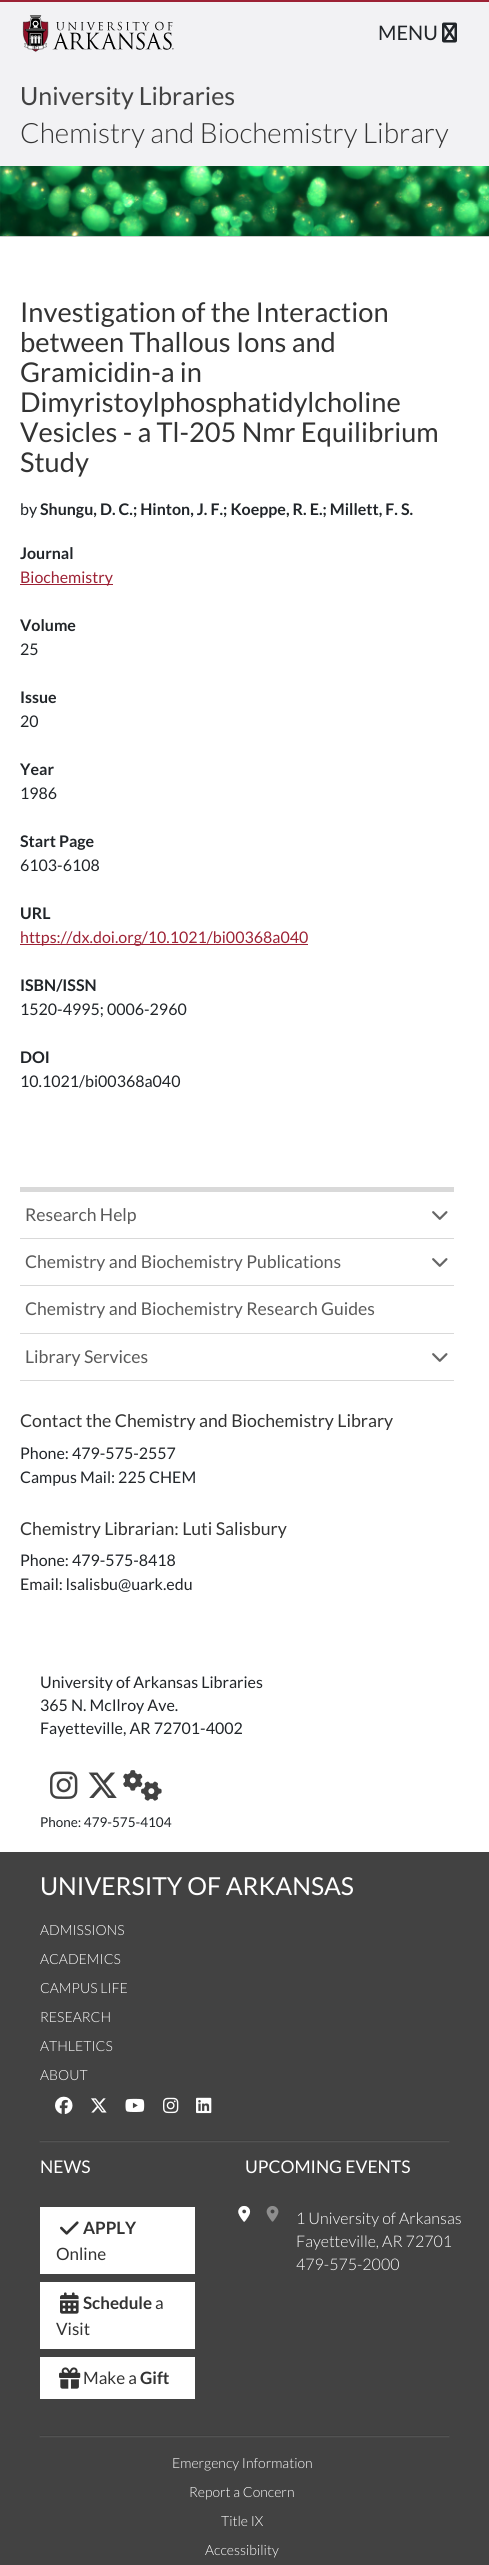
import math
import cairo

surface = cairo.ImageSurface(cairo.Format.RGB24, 489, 2565)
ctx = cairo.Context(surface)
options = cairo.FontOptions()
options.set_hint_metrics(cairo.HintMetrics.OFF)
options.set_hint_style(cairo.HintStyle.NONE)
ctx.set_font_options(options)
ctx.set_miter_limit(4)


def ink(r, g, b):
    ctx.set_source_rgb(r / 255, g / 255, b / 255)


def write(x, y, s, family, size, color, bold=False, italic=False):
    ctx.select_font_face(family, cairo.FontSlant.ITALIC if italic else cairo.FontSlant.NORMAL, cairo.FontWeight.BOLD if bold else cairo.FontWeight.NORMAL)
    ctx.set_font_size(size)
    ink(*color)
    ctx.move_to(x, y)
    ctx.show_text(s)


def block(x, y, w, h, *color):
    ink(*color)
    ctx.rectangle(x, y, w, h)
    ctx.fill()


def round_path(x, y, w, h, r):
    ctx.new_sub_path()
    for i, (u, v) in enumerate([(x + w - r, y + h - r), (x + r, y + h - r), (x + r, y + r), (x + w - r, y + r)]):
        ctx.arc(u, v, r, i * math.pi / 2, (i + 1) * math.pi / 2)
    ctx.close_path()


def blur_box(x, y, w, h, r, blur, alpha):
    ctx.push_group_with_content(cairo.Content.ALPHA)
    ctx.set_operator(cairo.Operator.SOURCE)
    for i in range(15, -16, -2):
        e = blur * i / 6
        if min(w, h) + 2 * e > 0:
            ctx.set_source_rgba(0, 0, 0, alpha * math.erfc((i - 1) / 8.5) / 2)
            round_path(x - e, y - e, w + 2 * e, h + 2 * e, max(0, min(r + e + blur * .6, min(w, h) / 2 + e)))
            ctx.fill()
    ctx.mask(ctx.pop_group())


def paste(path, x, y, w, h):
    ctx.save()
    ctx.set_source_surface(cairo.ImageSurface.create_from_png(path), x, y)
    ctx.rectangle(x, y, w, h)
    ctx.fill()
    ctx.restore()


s1 = dict(family="Lato", size=20, color=(33, 37, 41))
s2 = dict(family="Lato", size=25, color=(66, 66, 66))
s3 = dict(family="Lato Light", size=28, color=(51, 51, 51))
s4 = dict(family="Lato", size=27.25, color=(51, 51, 51))
s5 = dict(family="Lato", size=16, color=(33, 37, 41))
s6 = dict(family="Lato", size=16, color=(33, 37, 41), bold=True)
s7 = dict(family="Lato", size=16, color=(157, 34, 53))
s8 = dict(family="Lato", size=17.6, color=(90, 90, 90))
s9 = dict(family="Lato", size=17.7, color=(51, 51, 51))
s10 = dict(family="Lato", size=13.5, color=(33, 37, 41))
s11 = dict(family="Lato", size=24.75, color=(255, 255, 255))
s12 = dict(family="Lato Light", size=14, color=(255, 255, 255))
s13 = dict(family="Lato", size=17.5, color=(255, 255, 255))
s14 = dict(family="Lato", size=17, color=(51, 51, 51), bold=True)
s15 = dict(family="Lato", size=17, color=(51, 51, 51))
s16 = dict(family="Lato Light", size=16, color=(255, 255, 255))

ink(255, 255, 255)
ctx.paint()
block(0, 2, 489, 164, 242, 242, 244)
block(0, 0, 489, 2, 157, 34, 53)
block(0, 236, 489, 1, 204, 204, 204)
paste("pic1.png", 22, 15, 152, 37)
write(378, 40, "MENU", **s1)
paste("pic2.png", 442, 22, 15, 21)
write(20, 105, "University Libraries", **s2)
write(20, 143, "Chemistry and Biochemistry Library", **s3)
paste("pic3.png", 0, 166, 489, 70)
write(20, 322, "Investigation of the Interaction", **s4)
write(20, 352, "between Thallous Ions and", **s4)
write(20, 382, "Gramicidin-a in", **s4)
write(20, 412, "Dimyristoylphosphatidylcholine", **s4)
write(20, 442, "Vesicles - a Tl-205 Nmr Equilibrium", **s4)
write(20, 472, "Study", **s4)
write(20, 515, "by", **s5)
write(40, 515, "Shungu, D. C.; Hinton, J. F.; Koeppe, R. E.; Millett, F. S.", **s6)
write(20, 559, "Journal", **s6)
block(20, 584, 93, 1, 157, 34, 53)
write(20, 583, "Biochemistry", **s7)
write(20, 631, "Volume", **s6)
write(20, 655, "25", **s5)
write(20, 703, "Issue", **s6)
write(20, 727, "20", **s5)
write(20, 775, "Year", **s6)
write(20, 799, "1986", **s5)
write(20, 847, "Start Page", **s6)
write(20, 871, "6103-6108", **s5)
write(20, 919, "URL", **s6)
block(20, 944, 288, 1, 157, 34, 53)
write(20, 943, "https://dx.doi.org/10.1021/bi00368a040", **s7)
write(20, 991, "ISBN/ISSN", **s6)
write(20, 1015, "1520-4995; 0006-2960", **s5)
write(20, 1063, "DOI", **s6)
write(20, 1087, "10.1021/bi00368a040", **s5)
block(20, 1187, 434, 5, 217, 217, 217)
block(20, 1238, 434, 1, 217, 217, 217)
write(25, 1221, "Research Help", **s8)
paste("pic4.png", 432, 1211, 16, 9)
block(20, 1285, 434, 1, 217, 217, 217)
write(25, 1268, "Chemistry and Biochemistry Publications", **s8)
paste("pic4.png", 432, 1258, 16, 9)
block(20, 1333, 434, 1, 217, 217, 217)
write(25, 1315, "Chemistry and Biochemistry Research Guides", **s8)
block(20, 1380, 434, 1, 217, 217, 217)
write(25, 1363, "Library Services", **s8)
paste("pic4.png", 432, 1353, 16, 9)
write(20, 1427, "Contact the Chemistry and Biochemistry Library", **s9)
write(20, 1459, "Phone: 479-575-2557", **s5)
write(20, 1483, "Campus Mail: 225 CHEM", **s5)
write(20, 1535, "Chemistry Librarian: Luti Salisbury", **s9)
write(20, 1566, "Phone: 479-575-8418", **s5)
write(20, 1590, "Email: lsalisbu@uark.edu", **s5)
write(40, 1688, "University of Arkansas Libraries", **s5)
write(40, 1711, "365 N. McIlroy Ave.", **s5)
write(40, 1734, "Fayetteville, AR 72701-4002", **s5)
paste("pic5.png", 50, 1771, 28, 28)
paste("pic6.png", 88, 1772, 29, 26)
paste("pic7.png", 123, 1770, 39, 31)
write(40, 1827, "Phone: 479-575-4104", **s10)
block(0, 1852, 489, 713, 66, 66, 66)
write(40, 1895, "UNIVERSITY OF ARKANSAS", **s11)
write(40, 1935, "ADMISSIONS", **s12)
write(40, 1964, "ACADEMICS", **s12)
write(40, 1993, "CAMPUS LIFE", **s12)
write(40, 2022, "RESEARCH", **s12)
write(40, 2051, "ATHLETICS", **s12)
write(40, 2080, "ABOUT", **s12)
paste("pic8.png", 55, 2096, 18, 18)
paste("pic9.png", 91, 2098, 16, 15)
paste("pic10.png", 125, 2098, 20, 14)
paste("pic11.png", 163, 2097, 16, 17)
paste("pic12.png", 196, 2097, 16, 17)
ink(105, 105, 105)
blur_box(40, 2141, 409, 1, 0, 0.5, 0.6)
block(40, 2140, 409, 1, 62, 62, 62)
write(40, 2173, "NEWS", **s13)
write(245, 2173, "UPCOMING EVENTS", **s13)
block(40, 2207, 155, 67, 255, 255, 255)
paste("pic13.png", 60, 2221, 19, 14)
write(83, 2234, "APPLY", **s14)
write(56, 2260, "Online", **s15)
block(40, 2282, 155, 67, 255, 255, 255)
paste("pic14.png", 60, 2292, 19, 22)
write(83, 2309, "Schedule", **s14)
write(155, 2309, "a", **s15)
write(56, 2335, "Visit", **s15)
block(40, 2357, 155, 42, 255, 255, 255)
paste("pic15.png", 59, 2367, 22, 22)
write(83, 2384, "Make a", **s15)
write(140, 2384, "Gift", **s14)
paste("pic16.png", 238, 2205, 13, 17)
paste("pic17.png", 238, 2206, 41, 16)
write(296, 2224, "1 University of Arkansas", **s16)
write(296, 2247, "Fayetteville, AR 72701", **s16)
write(296, 2270, "479-575-2000", **s16)
ink(105, 105, 105)
blur_box(40, 2436, 409, 1, 0, 0.5, 0.6)
block(40, 2435, 409, 1, 62, 62, 62)
write(172, 2468, "Emergency Information", **s12)
write(189, 2497, "Report a Concern", **s12)
write(221, 2526, "Title IX", **s12)
write(205, 2555, "Accessibility", **s12)
surface.write_to_png("screenshot.png")
